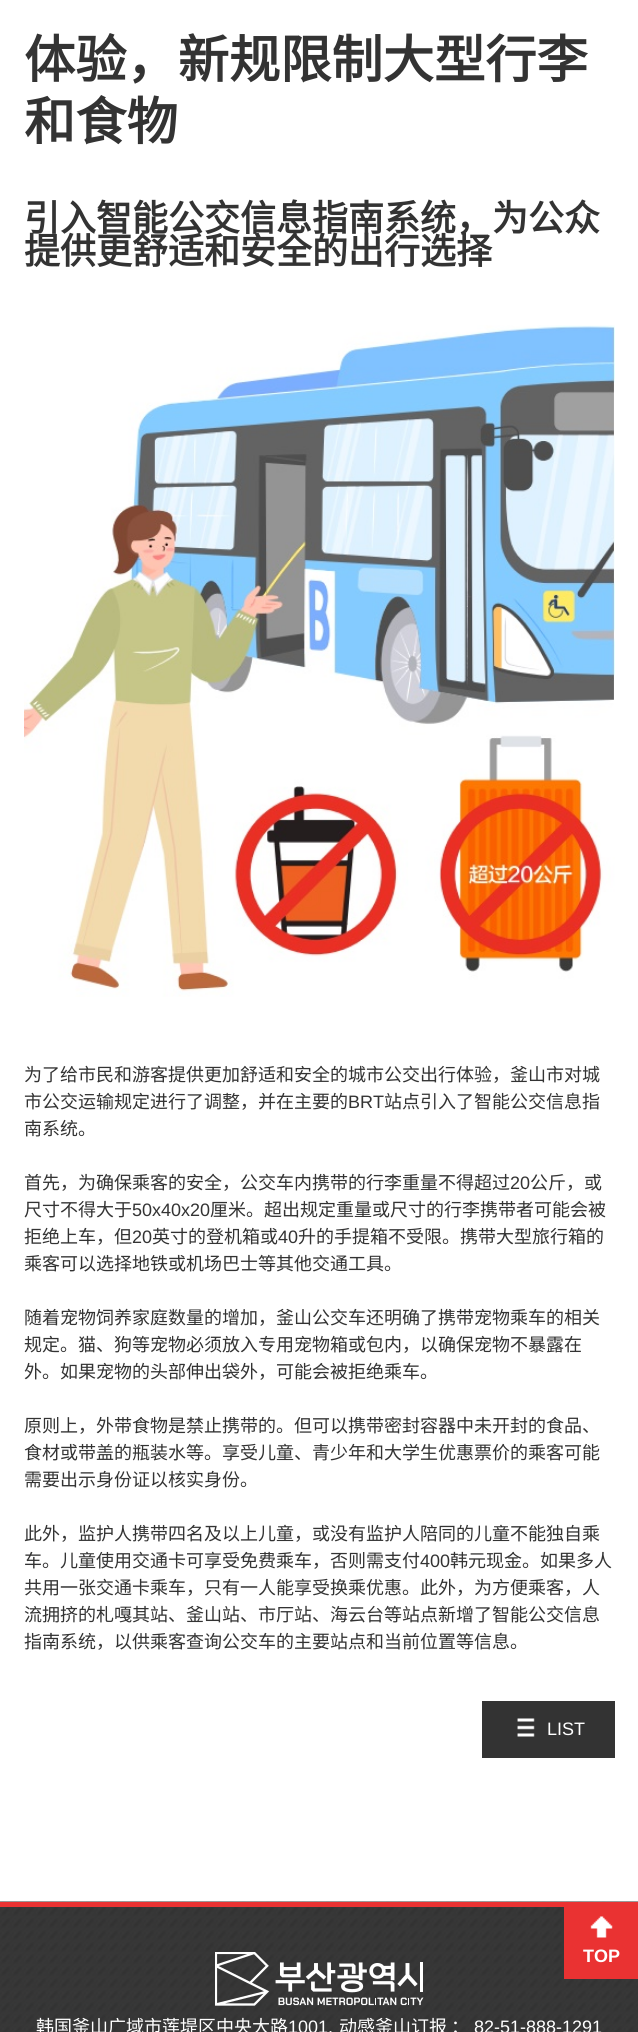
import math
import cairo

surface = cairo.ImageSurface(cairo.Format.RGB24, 638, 2032)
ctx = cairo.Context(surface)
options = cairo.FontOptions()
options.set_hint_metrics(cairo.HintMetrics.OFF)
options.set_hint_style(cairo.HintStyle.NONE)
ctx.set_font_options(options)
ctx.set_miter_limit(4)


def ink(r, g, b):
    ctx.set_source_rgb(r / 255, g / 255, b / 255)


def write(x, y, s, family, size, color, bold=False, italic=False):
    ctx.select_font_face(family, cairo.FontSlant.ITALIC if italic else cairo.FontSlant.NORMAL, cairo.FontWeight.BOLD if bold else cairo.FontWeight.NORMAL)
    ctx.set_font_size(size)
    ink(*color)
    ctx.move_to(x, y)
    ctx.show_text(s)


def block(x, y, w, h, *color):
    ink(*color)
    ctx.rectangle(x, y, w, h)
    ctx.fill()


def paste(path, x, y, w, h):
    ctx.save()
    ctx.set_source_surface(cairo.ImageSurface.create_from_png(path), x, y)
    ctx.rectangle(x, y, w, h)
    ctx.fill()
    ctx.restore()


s1 = dict(family="Noto Sans CJK SC", size=51.25, color=(51, 51, 51), bold=True)
s2 = dict(family="Noto Sans CJK SC", size=36, color=(51, 51, 51), bold=True)
s3 = dict(family="Noto Sans CJK SC", size=18, color=(51, 51, 51))
s4 = dict(family="Liberation Sans", size=18, color=(51, 51, 51))
s5 = dict(family="Liberation Sans", size=18, color=(255, 255, 255))
s6 = dict(family="Liberation Sans", size=18, color=(255, 255, 255), bold=True)
s7 = dict(family="Noto Sans CJK SC", size=18, color=(255, 255, 255))

ink(255, 255, 255)
ctx.paint()
write(24, 78, "体验，新规限制大型行李", **s1)
write(24, 140, "和食物", **s1)
write(24, 231, "引入智能公交信息指南系统，为公众", **s2)
write(24, 264, "提供更舒适和安全的出行选择", **s2)
paste("pic1.png", 24, 325, 591, 672)
write(24, 1081, "为了给市民和游客提供更加舒适和安全的城市公交出行体验，釜山市对城", **s3)
write(24, 1108, "市公交运输规定进行了调整，并在主要的", **s3)
write(348, 1108, "BRT", **s4)
write(384, 1108, "站点引入了智能公交信息指", **s3)
write(24, 1135, "南系统。", **s3)
write(24, 1189, "首先，为确保乘客的安全，公交车内携带的行李重量不得超过", **s3)
write(510, 1189, "20", **s4)
write(530, 1189, "公斤，或", **s3)
write(24, 1216, "尺寸不得大于", **s3)
write(132, 1216, "50x40x20", **s4)
write(210, 1216, "厘米。超出规定重量或尺寸的行李携带者可能会被", **s3)
write(24, 1243, "拒绝上车，但", **s3)
write(132, 1243, "20", **s4)
write(152, 1243, "英寸的登机箱或", **s3)
write(278, 1243, "40", **s4)
write(298, 1243, "升的手提箱不受限。携带大型旅行箱的", **s3)
write(24, 1270, "乘客可以选择地铁或机场巴士等其他交通工具。", **s3)
write(24, 1324, "随着宠物饲养家庭数量的增加，釜山公交车还明确了携带宠物乘车的相关", **s3)
write(24, 1351, "规定。猫、狗等宠物必须放入专用宠物箱或包内，以确保宠物不暴露在", **s3)
write(24, 1378, "外。如果宠物的头部伸出袋外，可能会被拒绝乘车。", **s3)
write(24, 1432, "原则上，外带食物是禁止携带的。但可以携带密封容器中未开封的食品、", **s3)
write(24, 1459, "食材或带盖的瓶装水等。享受儿童、青少年和大学生优惠票价的乘客可能", **s3)
write(24, 1486, "需要出示身份证以核实身份。", **s3)
write(24, 1540, "此外，监护人携带四名及以上儿童，或没有监护人陪同的儿童不能独自乘", **s3)
write(24, 1567, "车。儿童使用交通卡可享受免费乘车，否则需支付", **s3)
write(420, 1567, "400", **s4)
write(450, 1567, "韩元现金。如果多人", **s3)
write(24, 1594, "共用一张交通卡乘车，只有一人能享受换乘优惠。此外，为方便乘客，人", **s3)
write(24, 1621, "流拥挤的札嘎其站、釜山站、市厅站、海云台等站点新增了智能公交信息", **s3)
write(24, 1648, "指南系统，以供乘客查询公交车的主要站点和当前位置等信息。", **s3)
block(482, 1701, 133, 57, 51, 51, 51)
paste("pic2.png", 517, 1718, 18, 19)
write(547, 1735, "LIST", **s5)
paste("pic3.png", 0, 1901, 638, 131)
block(0, 1902, 638, 5, 234, 50, 50)
block(564, 1907, 74, 72, 234, 50, 50)
paste("pic4.png", 590, 1916, 23, 22)
write(583, 1962, "TOP", **s6)
paste("pic5.png", 215, 1952, 209, 54)
write(36, 2033, "韩国釜山广域市莲堤区中央大路", **s7)
write(288, 2033, "1001,", **s5)
write(339, 2033, "动感釜山订报 ：", **s7)
write(474, 2033, "82-51-888-1291", **s5)
surface.write_to_png("screenshot.png")
